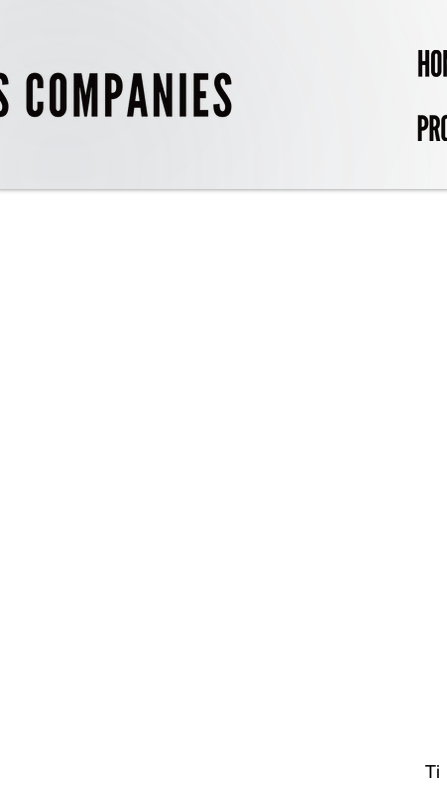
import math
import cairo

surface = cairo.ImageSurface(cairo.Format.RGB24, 447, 804)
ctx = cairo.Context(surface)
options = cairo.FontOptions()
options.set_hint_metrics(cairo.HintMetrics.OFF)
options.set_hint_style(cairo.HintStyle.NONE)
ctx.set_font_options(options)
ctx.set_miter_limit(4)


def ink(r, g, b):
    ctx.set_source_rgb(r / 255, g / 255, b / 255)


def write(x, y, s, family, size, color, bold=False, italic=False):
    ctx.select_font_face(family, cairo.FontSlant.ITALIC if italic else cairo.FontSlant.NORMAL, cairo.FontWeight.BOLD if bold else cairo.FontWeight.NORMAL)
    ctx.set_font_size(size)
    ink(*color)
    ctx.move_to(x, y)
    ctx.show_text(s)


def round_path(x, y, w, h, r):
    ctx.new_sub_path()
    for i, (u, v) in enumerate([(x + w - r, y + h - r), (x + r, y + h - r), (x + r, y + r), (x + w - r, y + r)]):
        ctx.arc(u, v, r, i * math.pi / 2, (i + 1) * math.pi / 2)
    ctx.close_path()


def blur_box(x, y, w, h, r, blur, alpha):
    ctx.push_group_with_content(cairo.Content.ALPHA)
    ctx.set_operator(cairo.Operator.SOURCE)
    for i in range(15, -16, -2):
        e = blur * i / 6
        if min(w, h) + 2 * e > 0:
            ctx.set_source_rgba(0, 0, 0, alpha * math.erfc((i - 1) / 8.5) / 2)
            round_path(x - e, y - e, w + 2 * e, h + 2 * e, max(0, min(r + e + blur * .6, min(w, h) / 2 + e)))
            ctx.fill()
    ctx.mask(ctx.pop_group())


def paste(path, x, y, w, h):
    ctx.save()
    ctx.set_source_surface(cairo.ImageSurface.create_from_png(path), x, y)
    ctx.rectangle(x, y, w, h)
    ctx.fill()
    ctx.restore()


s1 = dict(family="helvetica", size=18, color=(0, 0, 0))

ink(255, 255, 255)
ctx.paint()
ink(0, 0, 0)
blur_box(0, 0, 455, 189, 0, 2.5, 0.5)
gradient = cairo.RadialGradient(60, 24, 0, 60, 24, 934)
gradient.add_color_stop_rgba(0, 0.925, 0.925, 0.925, 1)
gradient.add_color_stop_rgba(0.7, 1, 1, 1, 1)
ctx.set_source(gradient)
ctx.rectangle(0, 0, 447, 189)
ctx.fill()
gradient = cairo.RadialGradient(64, 166, 0, 64, 166, 931)
gradient.add_color_stop_rgba(0, 0.478, 0.525, 0.6, 0.12)
gradient.add_color_stop_rgba(0.5, 0.478, 0.525, 0.6, 0)
ctx.set_source(gradient)
ctx.rectangle(0, 0, 447, 189)
ctx.fill()
paste("pic1.png", 418, 50, 29, 27)
paste("pic2.png", 0, 71, 232, 48)
paste("pic3.png", 417, 114, 30, 27)
write(425, 778, "Ti", **s1)
surface.write_to_png("screenshot.png")
